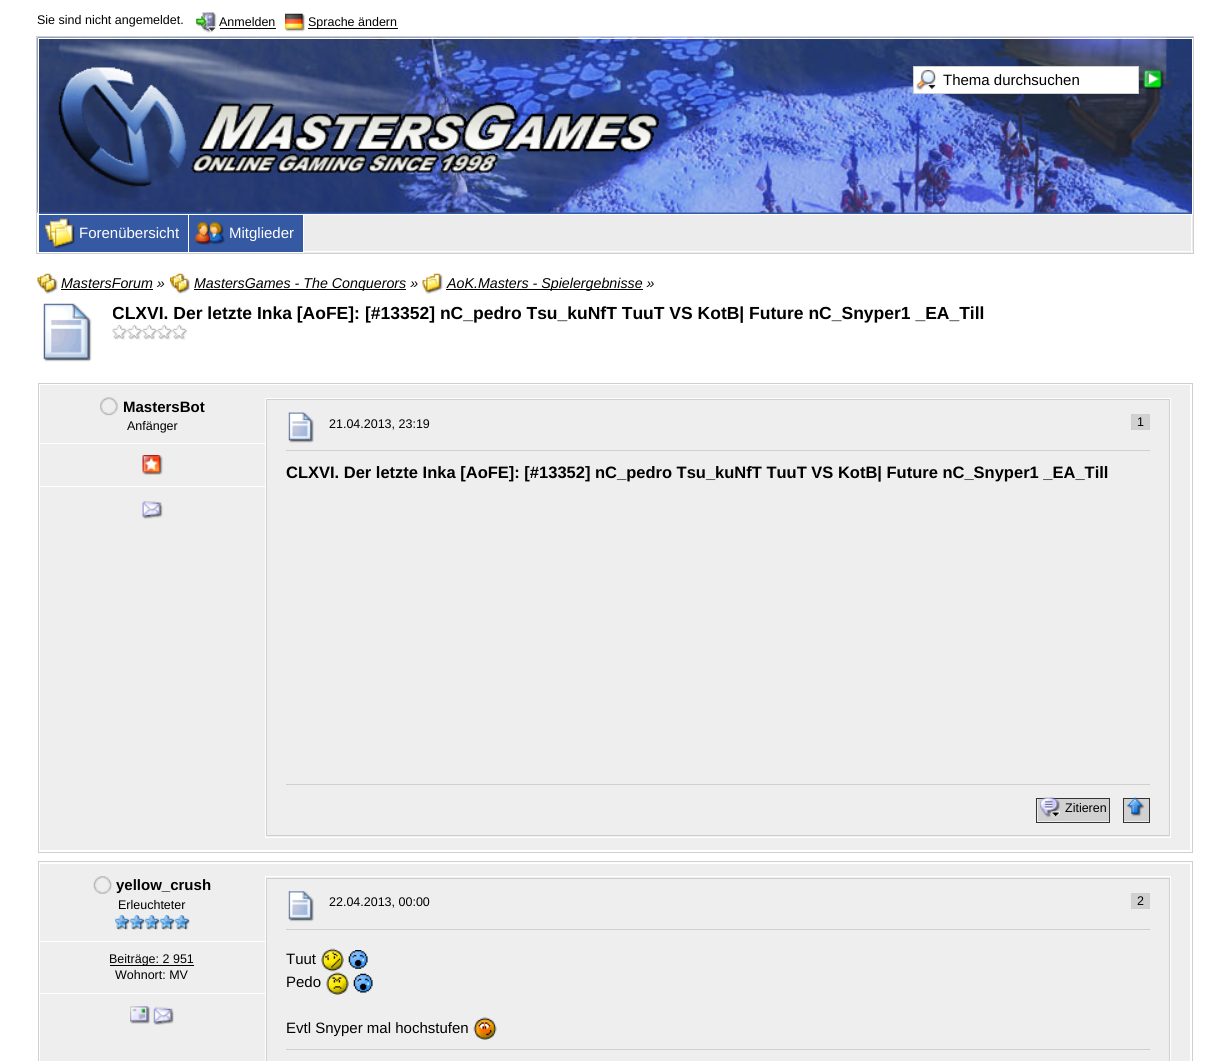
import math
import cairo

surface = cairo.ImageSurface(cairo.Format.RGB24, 1229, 1061)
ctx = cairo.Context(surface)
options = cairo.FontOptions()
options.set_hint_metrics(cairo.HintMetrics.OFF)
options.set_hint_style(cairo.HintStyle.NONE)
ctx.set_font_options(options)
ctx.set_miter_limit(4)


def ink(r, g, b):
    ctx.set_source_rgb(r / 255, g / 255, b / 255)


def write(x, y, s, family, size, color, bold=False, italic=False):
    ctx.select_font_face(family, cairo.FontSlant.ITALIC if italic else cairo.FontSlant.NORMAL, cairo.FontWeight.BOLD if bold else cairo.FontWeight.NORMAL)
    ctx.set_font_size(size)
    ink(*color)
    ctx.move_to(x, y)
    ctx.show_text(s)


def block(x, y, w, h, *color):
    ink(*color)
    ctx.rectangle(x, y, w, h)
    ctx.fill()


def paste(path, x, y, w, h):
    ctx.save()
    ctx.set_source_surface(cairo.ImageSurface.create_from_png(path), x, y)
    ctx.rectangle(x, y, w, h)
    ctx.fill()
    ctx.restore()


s1 = dict(family="Liberation Sans", size=12.5, color=(0, 0, 0))
s2 = dict(family="Liberation Sans", size=15, color=(0, 0, 0))
s3 = dict(family="Liberation Sans", size=15, color=(255, 255, 255))
s4 = dict(family="Liberation Sans", size=14.25, color=(0, 0, 0), italic=True)
s5 = dict(family="Liberation Sans", size=17.5, color=(0, 0, 0), bold=True)
s6 = dict(family="Liberation Sans", size=15, color=(0, 0, 0), bold=True)
s7 = dict(family="Liberation Sans", size=16.5, color=(0, 0, 0), bold=True)

ink(255, 255, 255)
ctx.paint()
write(37, 24, "Sie sind nicht angemeldet.", **s1)
paste("pic1.png", 196, 12, 21, 21)
write(219, 26, "Anmelden", **s1)
block(220, 28, 56, 1, 0, 0, 0)
paste("pic2.png", 285, 13, 20, 19)
block(308, 28, 90, 1, 0, 0, 0)
write(308, 26, "Sprache ändern", **s1)
block(39, 212, 1153, 2, 53, 89, 163)
paste("pic3.png", 37, 37, 1156, 176)
block(36, 36, 1158, 1, 207, 207, 207)
block(1193, 214, 1, 40, 207, 207, 207)
block(1193, 36, 1, 179, 207, 207, 207)
block(36, 253, 1158, 1, 207, 207, 207)
block(36, 214, 1, 40, 207, 207, 207)
block(36, 36, 1, 179, 207, 207, 207)
block(304, 215, 889, 38, 236, 236, 236)
block(1191, 214, 1, 39, 255, 255, 255)
ctx.rectangle(38.5, 38.5, 1154, 176)
ctx.set_line_width(1)
ctx.stroke()
paste("pic4.png", 58, 67, 601, 120)
block(914, 67, 224, 26, 255, 255, 255)
paste("pic5.png", 916, 70, 20, 20)
ctx.rectangle(913.5, 66.5, 225, 27)
ink(207, 207, 207)
ctx.stroke()
write(943, 85, "Thema durchsuchen", **s2)
paste("pic6.png", 1143, 70, 21, 20)
block(304, 251, 889, 1, 255, 255, 255)
block(39, 215, 149, 37, 53, 89, 163)
paste("pic7.png", 45, 218, 30, 31)
write(79, 238, "Forenübersicht", **s3)
block(189, 215, 114, 37, 53, 89, 163)
paste("pic8.png", 195, 222, 30, 23)
write(229, 238, "Mitglieder", **s3)
paste("pic9.png", 37, 273, 21, 21)
write(61, 288, "MastersForum »", **s4)
block(61, 289, 92, 1, 0, 0, 0)
paste("pic10.png", 170, 273, 20, 21)
block(194, 289, 212, 1, 0, 0, 0)
write(194, 288, "MastersGames - The Conquerors »", **s4)
paste("pic11.png", 422, 273, 21, 21)
block(446, 289, 197, 1, 0, 0, 0)
write(447, 288, "AoK.Masters - Spielergebnisse »", **s4)
paste("pic12.png", 43, 303, 49, 59)
ctx.save()
ctx.rectangle(113, 303, 1080, 20)
ctx.clip()
write(112, 319, "CLXVI. Der letzte Inka [AoFE]:", **s5)
ctx.restore()
write(365, 319, "[#13352] nC_pedro Tsu_kuNfT TuuT VS KotB| Future nC_Snyper1 _EA_Till", **s5)
paste("pic13.png", 112, 325, 76, 15)
ctx.rectangle(38.5, 383.5, 1154, 469)
ink(207, 207, 207)
ctx.stroke()
block(40, 385, 1150, 465, 238, 238, 238)
block(40, 443, 225, 1, 255, 255, 255)
paste("pic14.png", 100, 397, 18, 19)
write(123, 412, "MastersBot", **s6)
write(127, 430, "Anfänger", **s1)
paste("pic15.png", 142, 455, 21, 20)
block(40, 486, 225, 1, 255, 255, 255)
paste("pic16.png", 142, 501, 21, 18)
ctx.rectangle(265.5, 398.5, 905, 439)
ctx.stroke()
ctx.rectangle(266.5, 399.5, 903, 436)
ink(207, 207, 207)
ctx.stroke()
block(286, 450, 864, 1, 207, 207, 207)
paste("pic17.png", 288, 412, 26, 31)
write(329, 428, "21.04.2013, 23:19", **s1)
ink(209, 209, 209)
ctx.rectangle(1131.5, 414.5, 18, 15)
ctx.fill_preserve()
ink(207, 207, 207)
ctx.stroke()
write(1137, 426, "1", **s1)
write(286, 478, "CLXVI. Der letzte Inka [AoFE]: [#13352] nC_pedro Tsu_kuNfT TuuT VS KotB| Future nC_Snyper1 _EA_Till", **s7)
block(286, 784, 864, 1, 207, 207, 207)
ctx.rectangle(1036.5, 798.5, 73, 24)
ink(51, 51, 51)
ctx.stroke()
block(1038, 799, 71, 22, 209, 209, 209)
paste("pic18.png", 1040, 797, 20, 21)
write(1065, 812, "Zitieren", **s1)
ctx.rectangle(1123.5, 798.5, 26, 24)
ink(51, 51, 51)
ctx.stroke()
block(1124, 799, 25, 22, 209, 209, 209)
paste("pic19.png", 1127, 797, 18, 20)
ctx.rectangle(38.5, 861.5, 1154, 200)
ink(207, 207, 207)
ctx.stroke()
block(40, 864, 1150, 197, 238, 238, 238)
block(40, 941, 225, 1, 255, 255, 255)
paste("pic20.png", 93, 876, 19, 18)
write(116, 890, "yellow_crush", **s6)
write(118, 909, "Erleuchteter", **s1)
paste("pic21.png", 115, 915, 75, 15)
block(110, 965, 84, 1, 0, 0, 0)
write(109, 963, "Beiträge: 2 951", **s1)
write(115, 979, "Wohnort: MV", **s1)
block(40, 993, 225, 1, 255, 255, 255)
paste("pic22.png", 130, 1006, 20, 18)
paste("pic23.png", 153, 1007, 21, 18)
ctx.rectangle(265.5, 876.5, 905, 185)
ctx.stroke()
ctx.rectangle(266.5, 878.5, 903, 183)
ink(207, 207, 207)
ctx.stroke()
block(286, 929, 864, 1, 207, 207, 207)
paste("pic24.png", 288, 891, 26, 31)
write(329, 906, "22.04.2013, 00:00", **s1)
ink(209, 209, 209)
ctx.rectangle(1131.5, 893.5, 18, 15)
ctx.fill_preserve()
ink(207, 207, 207)
ctx.stroke()
write(1137, 905, "2", **s1)
write(286, 964, "Tuut", **s2)
paste("pic25.png", 321, 948, 23, 24)
paste("pic26.png", 348, 950, 20, 19)
write(286, 987, "Pedo", **s2)
paste("pic27.png", 326, 972, 23, 23)
paste("pic28.png", 353, 973, 20, 20)
write(286, 1033, "Evtl Snyper mal hochstufen", **s2)
paste("pic29.png", 473, 1017, 24, 23)
block(286, 1049, 864, 1, 207, 207, 207)
surface.write_to_png("screenshot.png")
